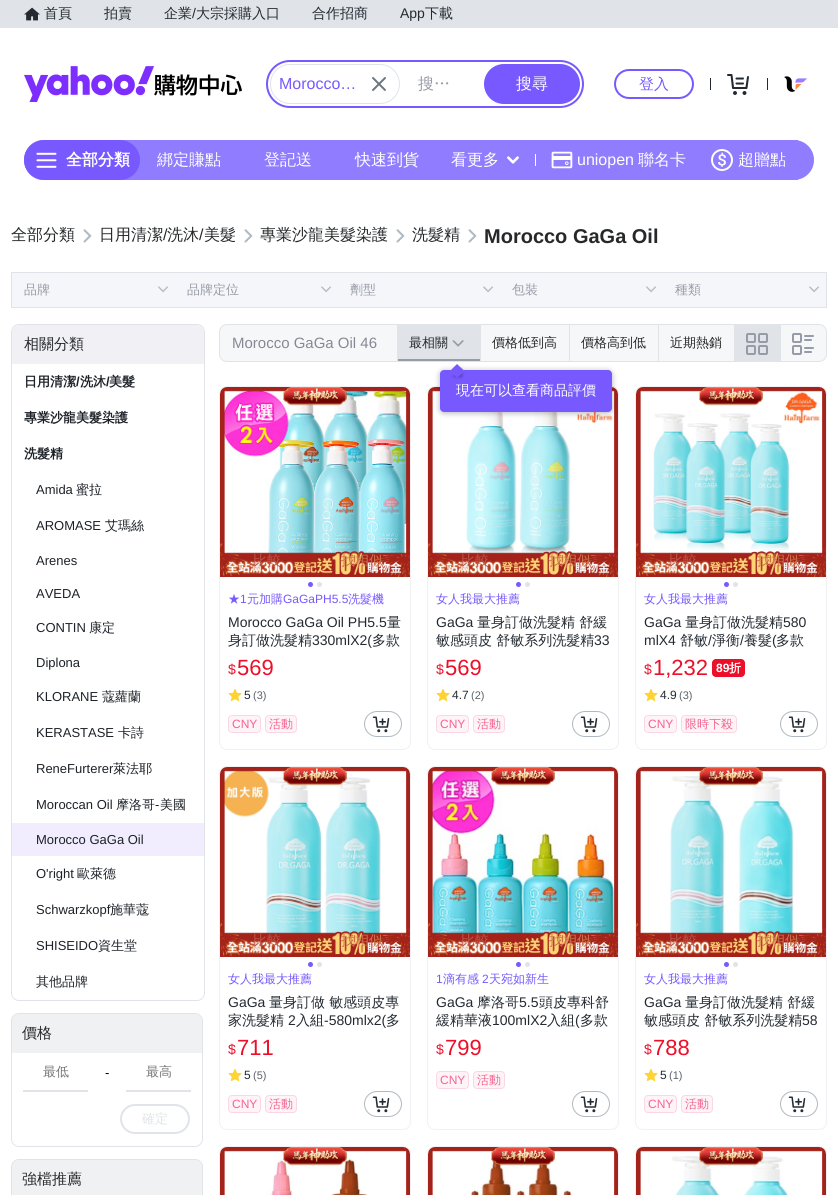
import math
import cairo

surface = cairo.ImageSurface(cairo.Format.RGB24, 838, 1195)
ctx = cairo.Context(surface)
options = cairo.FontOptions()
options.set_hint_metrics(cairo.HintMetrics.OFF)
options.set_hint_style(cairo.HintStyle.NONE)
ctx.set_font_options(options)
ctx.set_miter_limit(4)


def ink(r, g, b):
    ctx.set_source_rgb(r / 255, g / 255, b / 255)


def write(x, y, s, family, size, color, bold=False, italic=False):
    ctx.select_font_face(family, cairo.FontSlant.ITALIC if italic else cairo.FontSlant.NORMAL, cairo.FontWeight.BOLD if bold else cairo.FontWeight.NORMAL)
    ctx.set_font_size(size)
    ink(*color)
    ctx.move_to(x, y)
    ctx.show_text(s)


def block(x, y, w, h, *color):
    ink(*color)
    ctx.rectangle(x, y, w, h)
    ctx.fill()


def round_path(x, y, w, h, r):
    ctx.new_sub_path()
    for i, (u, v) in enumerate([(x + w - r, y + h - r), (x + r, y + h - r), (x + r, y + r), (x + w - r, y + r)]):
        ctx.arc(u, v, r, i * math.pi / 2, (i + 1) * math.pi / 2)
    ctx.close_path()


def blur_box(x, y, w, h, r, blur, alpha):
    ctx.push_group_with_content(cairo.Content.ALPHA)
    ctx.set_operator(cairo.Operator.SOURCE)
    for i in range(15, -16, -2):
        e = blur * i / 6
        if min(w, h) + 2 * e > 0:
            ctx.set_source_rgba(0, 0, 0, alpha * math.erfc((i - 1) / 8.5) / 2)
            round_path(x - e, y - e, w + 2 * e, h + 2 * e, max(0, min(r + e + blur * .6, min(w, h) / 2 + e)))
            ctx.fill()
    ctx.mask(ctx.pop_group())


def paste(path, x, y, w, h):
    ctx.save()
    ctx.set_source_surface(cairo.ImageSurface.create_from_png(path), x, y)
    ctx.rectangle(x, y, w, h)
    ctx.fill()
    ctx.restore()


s1 = dict(family="WenQuanYi Zen Hei Medium", size=14, color=(35, 42, 49))
s2 = dict(family="Liberation Sans", size=14, color=(35, 42, 49))
s3 = dict(family="Liberation Sans", size=16, color=(119, 89, 255))
s4 = dict(family="WenQuanYi Zen Hei Medium", size=16, color=(151, 155, 167))
s5 = dict(family="WenQuanYi Zen Hei Medium", size=16, color=(255, 255, 255))
s6 = dict(family="WenQuanYi Zen Hei Medium", size=15, color=(119, 89, 255))
s7 = dict(family="WenQuanYi Zen Hei", size=16, color=(255, 255, 255), bold=True)
s8 = dict(family="Liberation Sans", size=16, color=(255, 255, 255))
s9 = dict(family="WenQuanYi Zen Hei Medium", size=16, color=(38, 40, 42))
s10 = dict(family="Liberation Sans", size=16, color=(38, 40, 42))
s11 = dict(family="Liberation Sans", size=20, color=(38, 40, 42), bold=True)
s12 = dict(family="WenQuanYi Zen Hei Medium", size=13, color=(151, 155, 167))
s13 = dict(family="WenQuanYi Zen Hei Medium", size=15, color=(38, 40, 42))
s14 = dict(family="WenQuanYi Zen Hei", size=13, color=(29, 34, 40), bold=True)
s15 = dict(family="Liberation Sans", size=13, color=(29, 34, 40), bold=True)
s16 = dict(family="Liberation Sans", size=13, color=(29, 34, 40))
s17 = dict(family="WenQuanYi Zen Hei Medium", size=13, color=(29, 34, 40))
s18 = dict(family="WenQuanYi Zen Hei Medium", size=13, color=(117, 117, 117))
s19 = dict(family="Liberation Sans", size=13, color=(0, 0, 0))
s20 = dict(family="WenQuanYi Zen Hei Medium", size=13, color=(224, 228, 233))
s21 = dict(family="Liberation Sans", size=15, color=(133, 137, 150))
s22 = dict(family="WenQuanYi Zen Hei Medium", size=13, color=(38, 40, 42))
s23 = dict(family="WenQuanYi Zen Hei Medium", size=14, color=(255, 255, 255))
s24 = dict(family="WenQuanYi Zen Hei Medium", size=14, color=(186, 85, 71))
s25 = dict(family="WenQuanYi Zen Hei Medium", size=14, color=(203, 116, 79))
s26 = dict(family="WenQuanYi Zen Hei Medium", size=12, color=(119, 89, 255))
s27 = dict(family="Liberation Sans", size=12, color=(119, 89, 255))
s28 = dict(family="Liberation Sans", size=14, color=(235, 15, 41))
s29 = dict(family="Liberation Sans", size=22, color=(235, 15, 41))
s30 = dict(family="Liberation Sans", size=12, color=(35, 42, 49))
s31 = dict(family="Liberation Sans", size=11, color=(91, 99, 106))
s32 = dict(family="Liberation Sans", size=12, color=(242, 101, 145))
s33 = dict(family="WenQuanYi Zen Hei Medium", size=12, color=(242, 101, 145))
s34 = dict(family="Liberation Sans", size=12, color=(255, 255, 255), bold=True)
s35 = dict(family="WenQuanYi Zen Hei", size=12, color=(255, 255, 255), bold=True)

ink(255, 255, 255)
ctx.paint()
block(0, 0, 838, 28, 224, 228, 233)
paste("pic1.png", 24, 7, 16, 14)
write(44, 18, "首頁", **s1)
write(104, 18, "拍賣", **s1)
write(164, 18, "企業", **s1)
write(192, 18, "/", **s2)
write(196, 18, "大宗採購入口", **s1)
write(312, 18, "合作招商", **s1)
write(400, 18, "App", **s2)
write(425, 18, "下載", **s1)
paste("pic2.png", 24, 66, 218, 36)
round_path(267, 61, 316, 46, 23)
ink(119, 89, 255)
ctx.stroke()
round_path(270.5, 64.5, 129, 39, 19.5)
ink(224, 228, 233)
ctx.set_line_width(1)
ctx.stroke()
write(279, 89, "Morocco…", **s3)
paste("pic3.png", 372, 77, 14, 14)
write(418, 89, "搜…", **s4)
ink(119, 89, 255)
round_path(484, 64, 96, 40, 20)
ctx.fill()
write(516, 89, "搜尋", **s5)
round_path(615, 70, 78, 28, 14)
ink(119, 89, 255)
ctx.set_line_width(2)
ctx.stroke()
write(639, 89, "登入", **s6)
block(710, 78, 1, 12, 35, 42, 49)
paste("pic4.png", 727, 74, 22, 21)
block(767, 78, 1, 12, 35, 42, 49)
paste("pic5.png", 784, 76, 23, 16)
ink(144, 124, 255)
round_path(24, 140, 790, 40, 20)
ctx.fill()
ink(119, 89, 255)
round_path(24, 140, 116, 40, 20)
ctx.fill()
paste("pic6.png", 36, 152, 21, 16)
write(66, 165, "全部分類", **s7)
write(157, 165, "綁定賺點", **s5)
write(264, 165, "登記送", **s5)
write(355, 165, "快速到貨", **s5)
write(451, 165, "看更多", **s5)
paste("pic7.png", 507, 156, 12, 8)
block(535, 154, 1, 12, 255, 255, 255)
paste("pic8.png", 551, 151, 22, 18)
write(577, 165, "uniopen", **s8)
write(638, 165, "聯名卡", **s5)
block(794, 140, 4, 40, 144, 124, 255)
paste("pic9.png", 711, 149, 22, 22)
write(738, 165, "超贈點", **s5)
paste("pic10.png", 83, 229, 9, 14)
write(11, 240, "全部分類", **s9)
write(99, 240, "日用清潔", **s9)
write(163, 240, "/", **s10)
write(167, 240, "洗沐", **s9)
write(199, 240, "/", **s10)
write(204, 240, "美髮", **s9)
paste("pic10.png", 244, 229, 9, 14)
write(260, 240, "專業沙龍美髮染護", **s9)
paste("pic10.png", 396, 229, 9, 14)
write(412, 240, "洗髮精", **s9)
paste("pic10.png", 468, 229, 9, 14)
write(484, 243, "Morocco GaGa Oil", **s11)
ctx.rectangle(11.5, 272.5, 815, 35)
ink(224, 228, 233)
ctx.set_line_width(1)
ctx.stroke()
block(12, 273, 814, 34, 244, 246, 249)
write(24, 294, "品牌", **s12)
paste("pic11.png", 158, 286, 10, 7)
write(187, 294, "品牌定位", **s12)
paste("pic11.png", 321, 286, 10, 7)
write(350, 294, "劑型", **s12)
paste("pic11.png", 483, 286, 10, 7)
write(512, 294, "包裝", **s12)
paste("pic11.png", 646, 286, 10, 7)
write(675, 294, "種類", **s12)
paste("pic11.png", 809, 286, 10, 7)
round_path(11.5, 324.5, 193, 676, 7.5)
ink(224, 228, 233)
ctx.stroke()
ink(241, 241, 245)
ctx.new_path()
ctx.move_to(19, 325)
ctx.line_to(197, 325)
ctx.curve_to(201, 325, 204, 328, 204, 332)
ctx.line_to(204, 364)
ctx.line_to(12, 364)
ctx.line_to(12, 332)
ctx.curve_to(12, 328, 15, 325, 19, 325)
ctx.close_path()
ctx.fill()
write(24, 349, "相關分類", **s13)
write(24, 386, "日用清潔", **s14)
write(76, 386, "/", **s15)
write(80, 386, "洗沐", **s14)
write(106, 386, "/", **s15)
write(109, 386, "美髮", **s14)
write(24, 422, "專業沙龍美髮染護", **s14)
write(24, 458, "洗髮精", **s14)
write(36, 494, "Amida", **s16)
write(76, 494, "蜜拉", **s17)
write(36, 530, "AROMASE", **s16)
write(105, 530, "艾瑪絲", **s17)
write(36, 565, "Arenes", **s16)
write(36, 598, "AVEDA", **s16)
write(36, 632, "CONTIN", **s16)
write(89, 632, "康定", **s17)
write(36, 667, "Diplona", **s16)
write(36, 701, "KLORANE", **s16)
write(102, 701, "蔻蘿蘭", **s17)
write(36, 737, "KERASTASE", **s16)
write(118, 737, "卡詩", **s17)
write(36, 773, "ReneFurterer", **s16)
write(113, 773, "萊法耶", **s17)
write(36, 809, "Moroccan Oil", **s16)
write(116, 809, "摩洛哥", **s17)
write(155, 809, "-", **s16)
write(160, 809, "美國", **s17)
block(12, 823, 192, 33, 241, 237, 255)
write(36, 844, "Morocco GaGa Oil", **s16)
write(36, 878, "O'right", **s16)
write(77, 878, "歐萊德", **s17)
write(36, 914, "Schwarzkopf", **s16)
write(110, 914, "施華蔻", **s17)
write(36, 950, "SHISEIDO", **s16)
write(98, 950, "資生堂", **s17)
write(36, 986, "其他品牌", **s17)
round_path(11.5, 1013.5, 191, 133, 7.5)
ink(224, 228, 233)
ctx.stroke()
ctx.set_source_rgba(0.878, 0.894, 0.914, 0.5)
ctx.new_path()
ctx.move_to(19, 1014)
ctx.line_to(195, 1014)
ctx.curve_to(199, 1014, 202, 1017, 202, 1021)
ctx.line_to(202, 1053)
ctx.line_to(12, 1053)
ctx.line_to(12, 1021)
ctx.curve_to(12, 1017, 15, 1014, 19, 1014)
ctx.close_path()
ctx.fill()
write(22, 1038, "價格", **s13)
block(23, 1090, 65, 2, 224, 228, 233)
write(43, 1076, "最低", **s18)
write(105, 1077, "-", **s19)
block(126, 1090, 65, 2, 224, 228, 233)
write(146, 1076, "最高", **s18)
round_path(121, 1105, 68, 28, 14)
ink(224, 228, 233)
ctx.set_line_width(2)
ctx.stroke()
write(142, 1123, "確定", **s20)
round_path(11.5, 1159.5, 191, 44, 7.5)
ctx.set_line_width(1)
ctx.stroke()
ctx.set_source_rgba(0.878, 0.894, 0.914, 0.5)
ctx.new_path()
ctx.move_to(19, 1160)
ctx.line_to(195, 1160)
ctx.curve_to(199, 1160, 202, 1163, 202, 1167)
ctx.line_to(202, 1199)
ctx.line_to(12, 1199)
ctx.line_to(12, 1167)
ctx.curve_to(12, 1163, 15, 1160, 19, 1160)
ctx.close_path()
ctx.fill()
write(22, 1184, "強檔推薦", **s13)
ink(246, 247, 248)
round_path(219.5, 324.5, 607, 37, 7.5)
ctx.fill_preserve()
ink(224, 228, 233)
ctx.stroke()
write(232, 348, "Morocco GaGa Oil 46", **s21)
block(398, 325, 82, 34, 224, 228, 233)
block(397, 359, 83, 2, 151, 155, 167)
block(397, 325, 1, 36, 224, 228, 233)
write(409, 347, "最相關", **s22)
paste("pic12.png", 452, 340, 12, 7)
block(480, 325, 1, 36, 224, 228, 233)
write(492, 347, "價格低到高", **s22)
block(569, 325, 1, 36, 224, 228, 233)
write(581, 347, "價格高到低", **s22)
block(658, 325, 1, 36, 224, 228, 233)
write(670, 347, "近期熱銷", **s22)
block(734, 325, 47, 36, 224, 228, 233)
paste("pic13.png", 746, 333, 22, 22)
paste("pic14.png", 792, 333, 22, 22)
round_path(427.5, 386.5, 191, 363, 7.5)
ink(241, 241, 245)
ctx.stroke()
paste("pic20.png", 466, 391, 147, 163)
paste("pic19.png", 428, 387, 190, 190)
ink(0, 0, 20)
blur_box(440, 371, 172, 42, 4, 3, 0.3)
ink(119, 89, 255)
round_path(440, 370, 172, 42, 4)
ctx.fill()
ink(0, 0, 20)
blur_box(454, 369, 8, 8, 0, 1.5, 0.3)
ink(119, 89, 255)
ctx.new_path()
ctx.move_to(457, 378)
ctx.line_to(450, 371)
ctx.line_to(457, 364)
ctx.line_to(464.5, 371)
ctx.close_path()
ctx.fill()
write(456, 395, "現在可以查看商品評價", **s23)
round_path(219.5, 386.5, 191, 363, 7.5)
ink(241, 241, 245)
ctx.stroke()
paste("pic15.png", 220, 387, 190, 167)
ink(119, 89, 255)
ctx.arc(310.5, 584.5, 2.5, 0, 2 * math.pi)
ctx.fill()
ink(224, 228, 233)
ctx.arc(319.5, 584.5, 2.5, 0, 2 * math.pi)
ctx.fill()
paste("pic16.png", 220, 387, 190, 190)
write(253, 565, "比較", **s24)
write(341, 565, "找相似", **s25)
write(228, 603, "★", **s26)
write(240, 603, "1", **s27)
write(247, 603, "元加購", **s26)
write(283, 603, "GaGaPH5.5", **s27)
write(348, 603, "洗髮機", **s26)
write(228, 627, "Morocco GaGa Oil PH5.5", **s2)
write(387, 627, "量", **s1)
write(228, 645, "身訂做洗髮精", **s1)
write(312, 645, "330mlX2(", **s2)
write(372, 645, "多款", **s1)
write(228, 674, "$", **s28)
write(237, 675, "569", **s29)
paste("pic17.png", 228, 688, 14, 14)
write(244, 699, "5", **s30)
write(253, 699, "(3)", **s31)
ink(254, 244, 247)
round_path(228, 715, 33, 18, 4)
ctx.fill()
round_path(228.5, 715.5, 32, 17, 3.5)
ctx.set_source_rgba(0.949, 0.396, 0.569, 0.2)
ctx.stroke()
write(232, 728, "CNY", **s32)
ink(254, 244, 247)
round_path(265, 715, 32, 18, 4)
ctx.fill()
round_path(265.5, 715.5, 31, 17, 3.5)
ctx.set_source_rgba(0.949, 0.396, 0.569, 0.2)
ctx.stroke()
write(269, 728, "活動", **s33)
round_path(364.5, 711.5, 37, 25, 12.5)
ink(176, 185, 193)
ctx.stroke()
paste("pic18.png", 372, 716, 18, 17)
ink(119, 89, 255)
ctx.arc(518.5, 584.5, 2.5, 0, 2 * math.pi)
ctx.fill()
ink(224, 228, 233)
ctx.arc(527.5, 584.5, 2.5, 0, 2 * math.pi)
ctx.fill()
write(461, 565, "比較", **s24)
write(549, 565, "找相似", **s25)
write(436, 603, "女人我最大推薦", **s26)
write(436, 627, "GaGa", **s2)
write(477, 627, "量身訂做洗髮精 舒緩", **s1)
write(436, 645, "敏感頭皮 舒敏系列洗髮精", **s1)
write(594, 645, "33", **s2)
write(436, 674, "$", **s28)
write(445, 675, "569", **s29)
paste("pic17.png", 436, 688, 14, 14)
write(452, 699, "4.7", **s30)
write(471, 699, "(2)", **s31)
ink(254, 244, 247)
round_path(436, 715, 33, 18, 4)
ctx.fill()
round_path(436.5, 715.5, 32, 17, 3.5)
ctx.set_source_rgba(0.949, 0.396, 0.569, 0.2)
ctx.stroke()
write(440, 728, "CNY", **s32)
ink(254, 244, 247)
round_path(473, 715, 32, 18, 4)
ctx.fill()
round_path(473.5, 715.5, 31, 17, 3.5)
ctx.set_source_rgba(0.949, 0.396, 0.569, 0.2)
ctx.stroke()
write(477, 728, "活動", **s33)
round_path(572.5, 711.5, 37, 25, 12.5)
ink(176, 185, 193)
ctx.stroke()
paste("pic18.png", 580, 716, 18, 17)
round_path(635.5, 386.5, 191, 363, 7.5)
ink(241, 241, 245)
ctx.stroke()
paste("pic22.png", 653, 391, 167, 160)
paste("pic21.png", 636, 387, 190, 190)
ink(119, 89, 255)
ctx.arc(726.5, 584.5, 2.5, 0, 2 * math.pi)
ctx.fill()
ink(224, 228, 233)
ctx.arc(735.5, 584.5, 2.5, 0, 2 * math.pi)
ctx.fill()
write(669, 565, "比較", **s24)
write(757, 565, "找相似", **s25)
write(644, 603, "女人我最大推薦", **s26)
write(644, 627, "GaGa", **s2)
write(685, 627, "量身訂做洗髮精", **s1)
write(783, 627, "580", **s2)
write(644, 645, "mlX4", **s2)
write(680, 645, "舒敏", **s1)
write(708, 645, "/", **s2)
write(712, 645, "淨衡", **s1)
write(740, 645, "/", **s2)
write(744, 645, "養髮", **s1)
write(772, 645, "(", **s2)
write(776, 645, "多款", **s1)
write(644, 674, "$", **s28)
write(653, 675, "1,232", **s29)
round_path(712, 659, 33, 18, 4)
ctx.fill()
write(716, 672, "89", **s34)
write(729, 672, "折", **s35)
paste("pic17.png", 644, 688, 14, 14)
write(660, 699, "4.9", **s30)
write(679, 699, "(3)", **s31)
ink(254, 244, 247)
round_path(644, 715, 33, 18, 4)
ctx.fill()
round_path(644.5, 715.5, 32, 17, 3.5)
ctx.set_source_rgba(0.949, 0.396, 0.569, 0.2)
ctx.stroke()
write(648, 728, "CNY", **s32)
ink(254, 244, 247)
round_path(681, 715, 56, 18, 4)
ctx.fill()
round_path(681.5, 715.5, 55, 17, 3.5)
ctx.set_source_rgba(0.949, 0.396, 0.569, 0.2)
ctx.stroke()
write(685, 728, "限時下殺", **s33)
round_path(780.5, 711.5, 37, 25, 12.5)
ink(176, 185, 193)
ctx.stroke()
paste("pic18.png", 788, 716, 18, 17)
round_path(219.5, 766.5, 191, 363, 7.5)
ink(241, 241, 245)
ctx.stroke()
paste("pic24.png", 221, 768, 160, 166)
paste("pic23.png", 220, 767, 190, 190)
ink(119, 89, 255)
ctx.arc(310.5, 964.5, 2.5, 0, 2 * math.pi)
ctx.fill()
ink(224, 228, 233)
ctx.arc(319.5, 964.5, 2.5, 0, 2 * math.pi)
ctx.fill()
write(253, 945, "比較", **s24)
write(341, 945, "找相似", **s25)
write(228, 983, "女人我最大推薦", **s26)
write(228, 1007, "GaGa", **s2)
write(269, 1007, "量身訂做 敏感頭皮專", **s1)
write(228, 1025, "家洗髮精", **s1)
write(288, 1025, "2", **s2)
write(296, 1025, "入組", **s1)
write(324, 1025, "-580mlx2(", **s2)
write(386, 1025, "多", **s1)
write(228, 1054, "$", **s28)
write(237, 1055, "711", **s29)
paste("pic17.png", 228, 1068, 14, 14)
write(244, 1079, "5", **s30)
write(253, 1079, "(5)", **s31)
ink(254, 244, 247)
round_path(228, 1095, 33, 18, 4)
ctx.fill()
round_path(228.5, 1095.5, 32, 17, 3.5)
ctx.set_source_rgba(0.949, 0.396, 0.569, 0.2)
ctx.stroke()
write(232, 1108, "CNY", **s32)
ink(254, 244, 247)
round_path(265, 1095, 32, 18, 4)
ctx.fill()
round_path(265.5, 1095.5, 31, 17, 3.5)
ctx.set_source_rgba(0.949, 0.396, 0.569, 0.2)
ctx.stroke()
write(269, 1108, "活動", **s33)
round_path(364.5, 1091.5, 37, 25, 12.5)
ink(176, 185, 193)
ctx.stroke()
paste("pic18.png", 372, 1096, 18, 17)
round_path(427.5, 766.5, 191, 363, 7.5)
ink(241, 241, 245)
ctx.stroke()
paste("pic25.png", 428, 767, 190, 167)
ink(119, 89, 255)
ctx.arc(518.5, 964.5, 2.5, 0, 2 * math.pi)
ctx.fill()
ink(224, 228, 233)
ctx.arc(527.5, 964.5, 2.5, 0, 2 * math.pi)
ctx.fill()
paste("pic26.png", 428, 767, 190, 190)
write(461, 945, "比較", **s24)
write(549, 945, "找相似", **s25)
write(436, 983, "1", **s27)
write(443, 983, "滴有感", **s26)
write(482, 983, "2", **s27)
write(489, 983, "天宛如新生", **s26)
write(436, 1007, "GaGa", **s2)
write(477, 1007, "摩洛哥", **s1)
write(519, 1007, "5.5", **s2)
write(539, 1007, "頭皮專科舒", **s1)
write(436, 1025, "緩精華液", **s1)
write(492, 1025, "100mlX2", **s2)
write(547, 1025, "入組", **s1)
write(575, 1025, "(", **s2)
write(580, 1025, "多款", **s1)
write(436, 1054, "$", **s28)
write(445, 1055, "799", **s29)
ink(254, 244, 247)
round_path(436, 1071, 33, 18, 4)
ctx.fill()
round_path(436.5, 1071.5, 32, 17, 3.5)
ctx.set_source_rgba(0.949, 0.396, 0.569, 0.2)
ctx.stroke()
write(440, 1084, "CNY", **s32)
ink(254, 244, 247)
round_path(473, 1071, 32, 18, 4)
ctx.fill()
round_path(473.5, 1071.5, 31, 17, 3.5)
ctx.set_source_rgba(0.949, 0.396, 0.569, 0.2)
ctx.stroke()
write(477, 1084, "活動", **s33)
round_path(572.5, 1091.5, 37, 25, 12.5)
ink(176, 185, 193)
ctx.stroke()
paste("pic18.png", 580, 1096, 18, 17)
round_path(635.5, 766.5, 191, 363, 7.5)
ink(241, 241, 245)
ctx.stroke()
paste("pic28.png", 669, 776, 125, 158)
paste("pic27.png", 636, 767, 190, 190)
ink(119, 89, 255)
ctx.arc(726.5, 964.5, 2.5, 0, 2 * math.pi)
ctx.fill()
ink(224, 228, 233)
ctx.arc(735.5, 964.5, 2.5, 0, 2 * math.pi)
ctx.fill()
write(669, 945, "比較", **s24)
write(757, 945, "找相似", **s25)
write(644, 983, "女人我最大推薦", **s26)
write(644, 1007, "GaGa", **s2)
write(685, 1007, "量身訂做洗髮精 舒緩", **s1)
write(644, 1025, "敏感頭皮 舒敏系列洗髮精", **s1)
write(802, 1025, "58", **s2)
write(644, 1054, "$", **s28)
write(653, 1055, "788", **s29)
paste("pic17.png", 644, 1068, 14, 14)
write(660, 1079, "5", **s30)
write(669, 1079, "(1)", **s31)
ink(254, 244, 247)
round_path(644, 1095, 33, 18, 4)
ctx.fill()
round_path(644.5, 1095.5, 32, 17, 3.5)
ctx.set_source_rgba(0.949, 0.396, 0.569, 0.2)
ctx.stroke()
write(648, 1108, "CNY", **s32)
ink(254, 244, 247)
round_path(681, 1095, 32, 18, 4)
ctx.fill()
round_path(681.5, 1095.5, 31, 17, 3.5)
ctx.set_source_rgba(0.949, 0.396, 0.569, 0.2)
ctx.stroke()
write(685, 1108, "活動", **s33)
round_path(780.5, 1091.5, 37, 25, 12.5)
ink(176, 185, 193)
ctx.stroke()
paste("pic18.png", 788, 1096, 18, 17)
round_path(219.5, 1146.5, 191, 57, 7.5)
ink(241, 241, 245)
ctx.stroke()
paste("pic30.png", 266, 1159, 102, 36)
paste("pic29.png", 220, 1147, 190, 48)
round_path(427.5, 1146.5, 191, 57, 7.5)
ctx.stroke()
paste("pic32.png", 470, 1157, 102, 38)
paste("pic31.png", 428, 1147, 190, 48)
round_path(635.5, 1146.5, 191, 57, 7.5)
ctx.stroke()
paste("pic34.png", 672, 1156, 117, 39)
paste("pic33.png", 636, 1147, 190, 48)
surface.write_to_png("screenshot.png")
